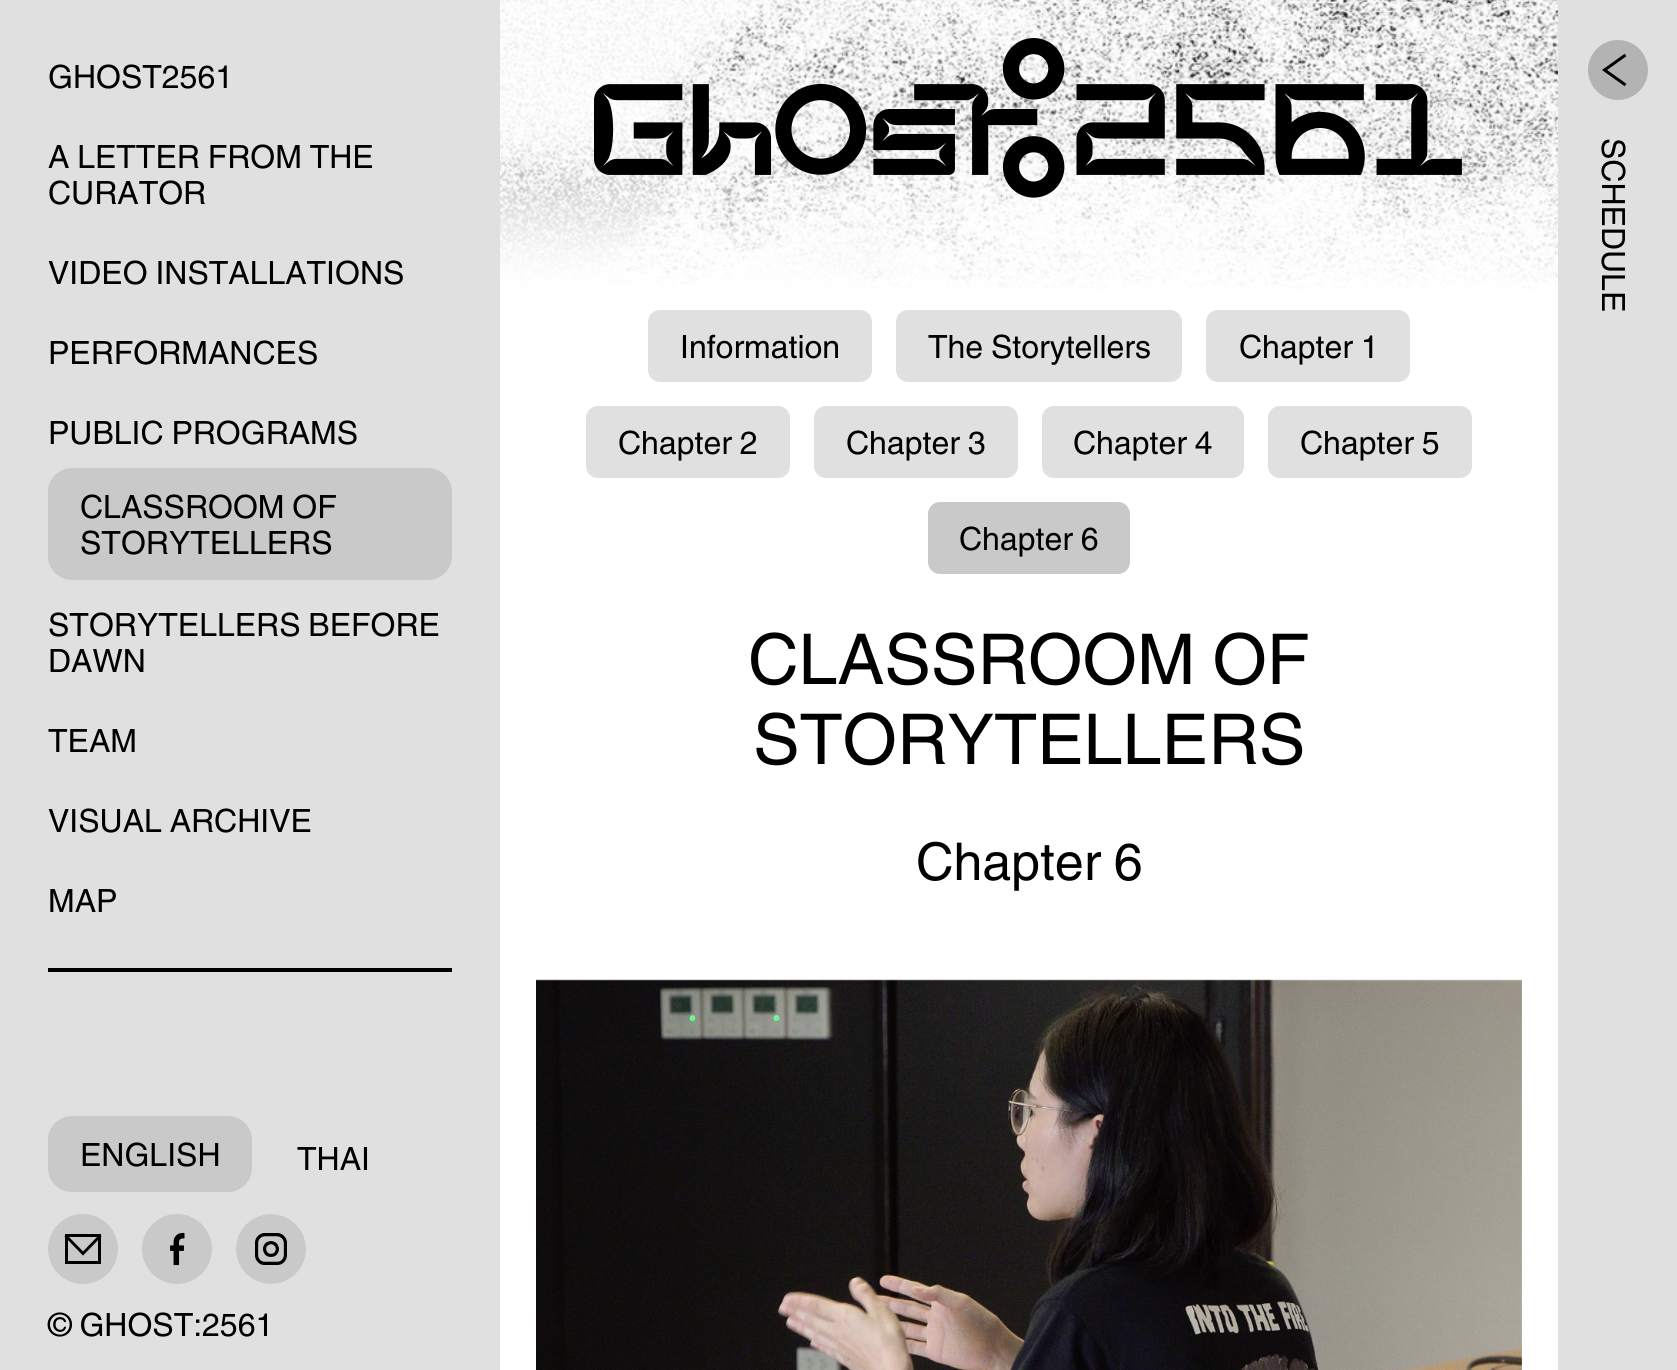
import math
import cairo

surface = cairo.ImageSurface(cairo.Format.RGB24, 1677, 1370)
ctx = cairo.Context(surface)
options = cairo.FontOptions()
options.set_hint_metrics(cairo.HintMetrics.OFF)
options.set_hint_style(cairo.HintStyle.NONE)
ctx.set_font_options(options)
ctx.set_miter_limit(4)


def ink(r, g, b):
    ctx.set_source_rgb(r / 255, g / 255, b / 255)


def write(x, y, s, family, size, color, bold=False, italic=False):
    ctx.select_font_face(family, cairo.FontSlant.ITALIC if italic else cairo.FontSlant.NORMAL, cairo.FontWeight.BOLD if bold else cairo.FontWeight.NORMAL)
    ctx.set_font_size(size)
    ink(*color)
    ctx.move_to(x, y)
    ctx.show_text(s)


def block(x, y, w, h, *color):
    ink(*color)
    ctx.rectangle(x, y, w, h)
    ctx.fill()


def round_path(x, y, w, h, r):
    ctx.new_sub_path()
    for i, (u, v) in enumerate([(x + w - r, y + h - r), (x + r, y + h - r), (x + r, y + r), (x + w - r, y + r)]):
        ctx.arc(u, v, r, i * math.pi / 2, (i + 1) * math.pi / 2)
    ctx.close_path()


def paste(path, x, y, w, h):
    ctx.save()
    ctx.set_source_surface(cairo.ImageSurface.create_from_png(path), x, y)
    ctx.rectangle(x, y, w, h)
    ctx.fill()
    ctx.restore()


s1 = dict(family="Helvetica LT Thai", size=32, color=(0, 0, 0))
s2 = dict(family="Helvetica LT Thai", size=70, color=(0, 0, 0))
s3 = dict(family="Helvetica LT Thai", size=52, color=(0, 0, 0))

ink(255, 255, 255)
ctx.paint()
block(0, 0, 500, 1370, 224, 224, 224)
block(48, 968, 404, 4, 0, 0, 0)
write(48, 88, "GHOST2561", **s1)
write(48, 168, "A LETTER FROM THE", **s1)
write(48, 204, "CURATOR", **s1)
write(48, 284, "VIDEO INSTALLATIONS", **s1)
write(48, 364, "PERFORMANCES", **s1)
write(48, 444, "PUBLIC PROGRAMS", **s1)
ink(201, 201, 201)
round_path(48, 468, 404, 112, 24)
ctx.fill()
write(80, 518, "CLASSROOM OF", **s1)
write(80, 554, "STORYTELLERS", **s1)
write(48, 636, "STORYTELLERS BEFORE", **s1)
write(48, 672, "DAWN", **s1)
write(48, 752, "TEAM", **s1)
write(48, 832, "VISUAL ARCHIVE", **s1)
write(48, 912, "MAP", **s1)
ink(201, 201, 201)
round_path(48, 1116, 204, 76, 24)
ctx.fill()
write(80, 1166, "ENGLISH", **s1)
write(297, 1170, "THAI", **s1)
ink(201, 201, 201)
ctx.new_path()
ctx.arc(83, 1249, 35, 0, 2 * math.pi)
ctx.fill()
ctx.rectangle(66.5, 1235.5, 33, 27)
ink(0, 0, 0)
ctx.set_line_width(3)
ctx.stroke()
ctx.new_path()
ctx.move_to(65.5, 1235.5)
ctx.line_to(83, 1253.5)
ctx.line_to(100.5, 1235.5)
ctx.set_line_width(2.9)
ctx.stroke()
paste("pic1.png", 142, 1214, 70, 70)
paste("pic2.png", 236, 1214, 70, 70)
write(48, 1336, "© GHOST:2561", **s1)
paste("pic3.png", 500, 0, 1058, 289)
paste("pic4.png", 594, 38, 868, 160)
block(1558, 0, 119, 1370, 224, 224, 224)
ink(179, 179, 179)
ctx.arc(1618, 70, 30, 0, 2 * math.pi)
ctx.fill()
ctx.new_path()
ctx.move_to(1625.5, 85)
ctx.line_to(1604.5, 70)
ctx.line_to(1625.5, 55)
ink(0, 0, 0)
ctx.set_line_width(3)
ctx.stroke()
ctx.save()
ctx.translate(1602, 138)
ctx.rotate(90 * math.pi / 180)
write(0, 0, "SCHEDULE", **s1)
ctx.restore()
ink(224, 224, 224)
round_path(648, 310, 224, 72, 12)
ctx.fill()
write(680, 358, "Information", **s1)
ink(224, 224, 224)
round_path(896, 310, 286, 72, 12)
ctx.fill()
write(928, 358, "The Storytellers", **s1)
ink(224, 224, 224)
round_path(1206, 310, 204, 72, 12)
ctx.fill()
write(1239, 358, "Chapter 1", **s1)
ink(224, 224, 224)
round_path(586, 406, 204, 72, 12)
ctx.fill()
write(618, 454, "Chapter 2", **s1)
ink(224, 224, 224)
round_path(814, 406, 204, 72, 12)
ctx.fill()
write(846, 454, "Chapter 3", **s1)
ink(224, 224, 224)
round_path(1042, 406, 202, 72, 12)
ctx.fill()
write(1073, 454, "Chapter 4", **s1)
ink(224, 224, 224)
round_path(1268, 406, 204, 72, 12)
ctx.fill()
write(1300, 454, "Chapter 5", **s1)
ink(201, 201, 201)
round_path(928, 502, 202, 72, 12)
ctx.fill()
write(959, 550, "Chapter 6", **s1)
write(748, 684, "CLASSROOM OF", **s2)
write(753, 764, "STORYTELLERS", **s2)
write(916, 880, "Chapter 6", **s3)
paste("pic5.png", 536, 979, 986, 391)
surface.write_to_png("screenshot.png")
